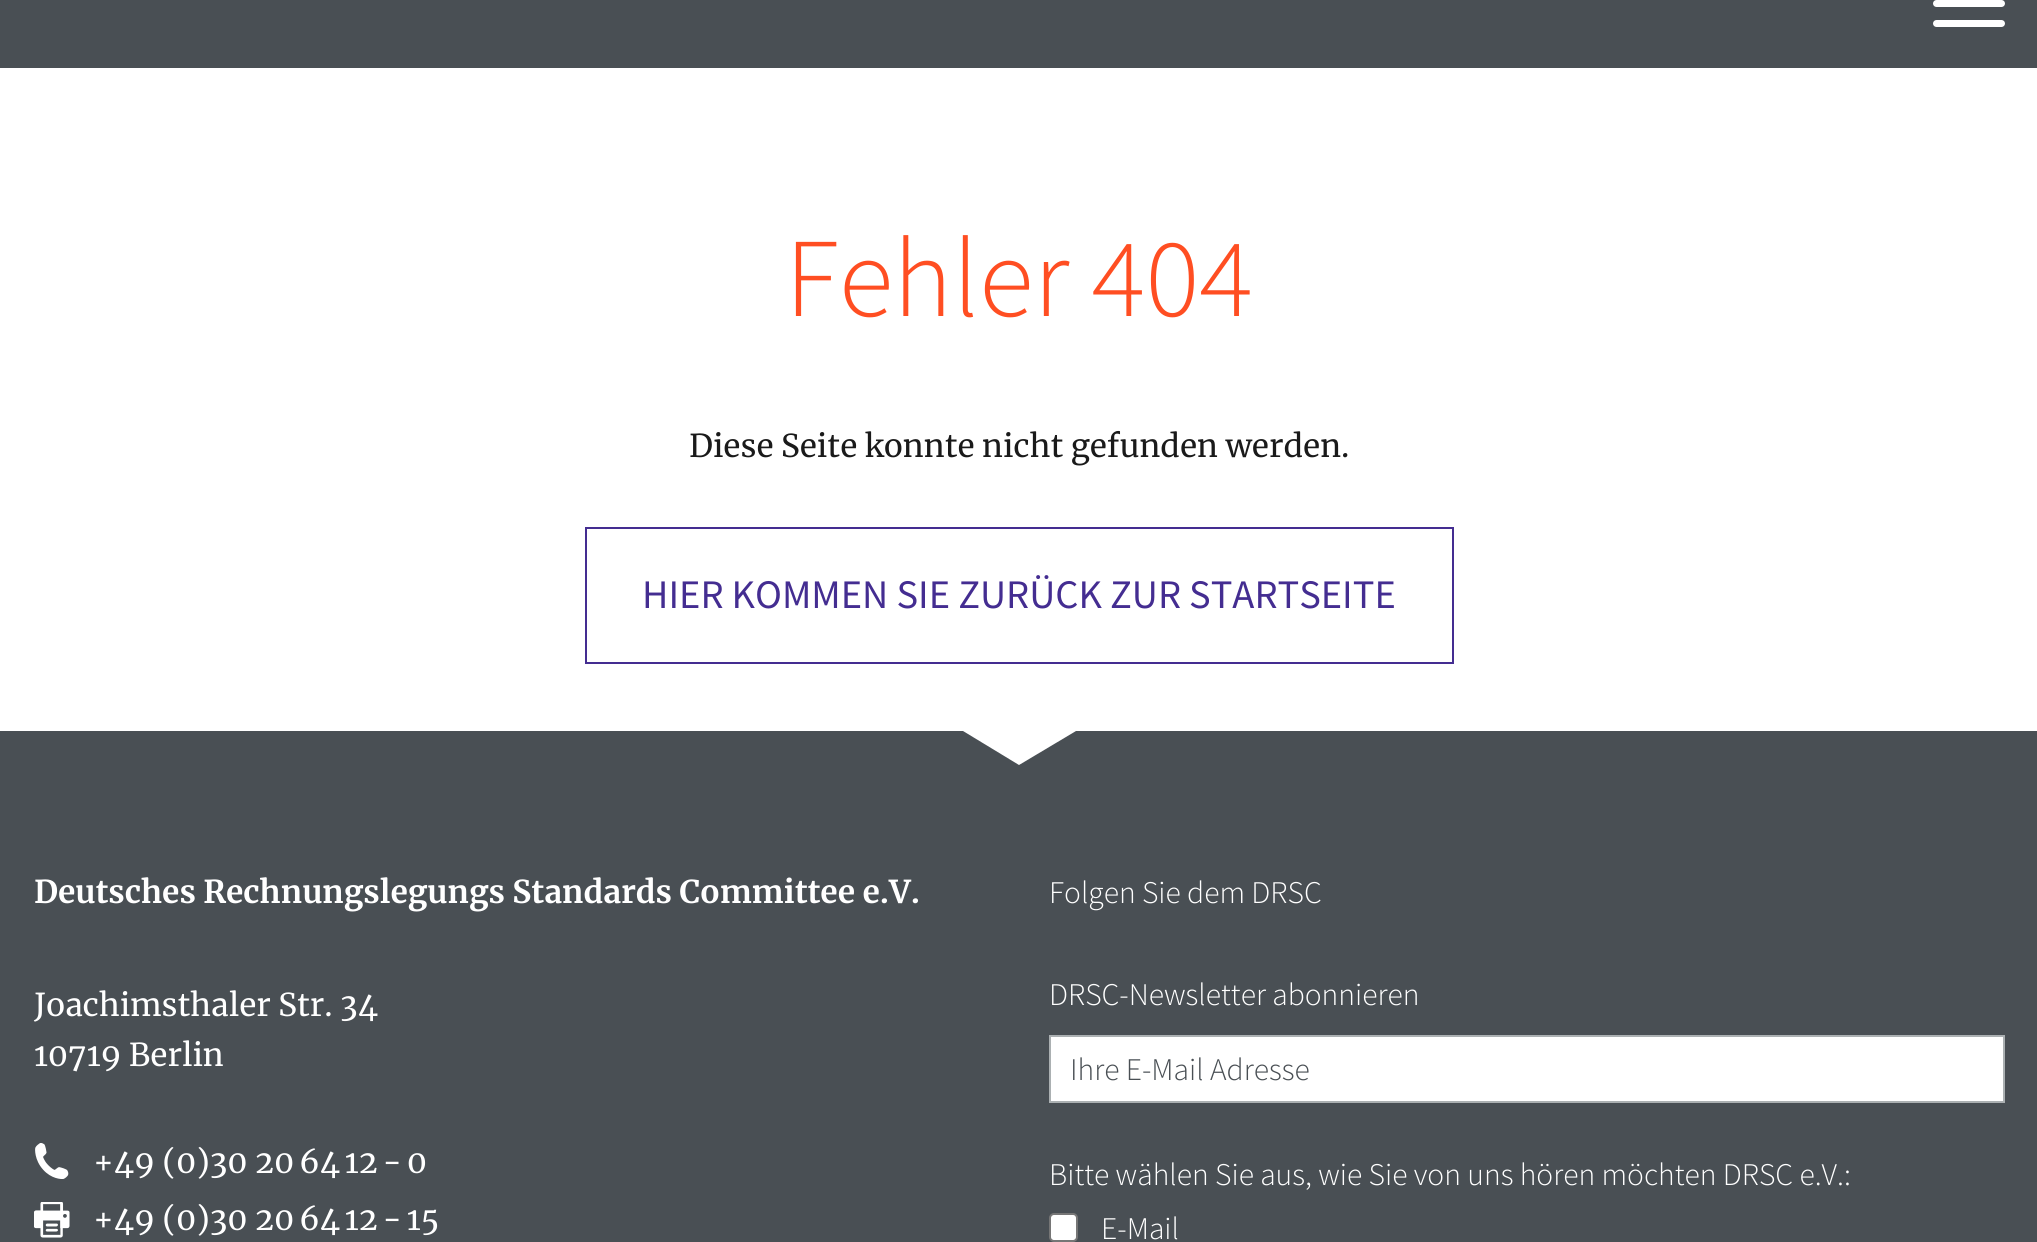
import math
import cairo

surface = cairo.ImageSurface(cairo.Format.RGB24, 2037, 1242)
ctx = cairo.Context(surface)
options = cairo.FontOptions()
options.set_hint_metrics(cairo.HintMetrics.OFF)
options.set_hint_style(cairo.HintStyle.NONE)
ctx.set_font_options(options)
ctx.set_miter_limit(4)


def ink(r, g, b):
    ctx.set_source_rgb(r / 255, g / 255, b / 255)


def write(x, y, s, family, size, color, bold=False, italic=False):
    ctx.select_font_face(family, cairo.FontSlant.ITALIC if italic else cairo.FontSlant.NORMAL, cairo.FontWeight.BOLD if bold else cairo.FontWeight.NORMAL)
    ctx.set_font_size(size)
    ink(*color)
    ctx.move_to(x, y)
    ctx.show_text(s)


def block(x, y, w, h, *color):
    ink(*color)
    ctx.rectangle(x, y, w, h)
    ctx.fill()


def round_path(x, y, w, h, r):
    ctx.new_sub_path()
    for i, (u, v) in enumerate([(x + w - r, y + h - r), (x + r, y + h - r), (x + r, y + r), (x + w - r, y + r)]):
        ctx.arc(u, v, r, i * math.pi / 2, (i + 1) * math.pi / 2)
    ctx.close_path()


def paste(path, x, y, w, h):
    ctx.save()
    ctx.set_source_surface(cairo.ImageSurface.create_from_png(path), x, y)
    ctx.rectangle(x, y, w, h)
    ctx.fill()
    ctx.restore()


s1 = dict(family="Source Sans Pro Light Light", size=112.5, color=(255, 78, 34))
s2 = dict(family="Merriweather", size=31.5, color=(26, 26, 26))
s3 = dict(family="Source Sans Pro", size=40.5, color=(68, 45, 145))
s4 = dict(family="Merriweather", size=31.5, color=(255, 255, 255), bold=True)
s5 = dict(family="Merriweather", size=31.5, color=(255, 255, 255))
s6 = dict(family="Source Sans Pro Light Light", size=31.5, color=(255, 255, 255))
s7 = dict(family="Source Sans Pro Light Light", size=31.5, color=(73, 79, 84))

ink(255, 255, 255)
ctx.paint()
block(0, 0, 2037, 68, 73, 79, 84)
ink(255, 255, 255)
round_path(1933, 20, 72, 7, 3.5)
ctx.fill()
round_path(1933, 0, 72, 7, 3.5)
ctx.fill()
write(785, 316, "Fehler 404", **s1)
write(689, 457, "Diese Seite konnte nicht gefunden werden.", **s2)
ctx.rectangle(586, 528, 867, 135)
ink(68, 45, 145)
ctx.stroke()
write(642, 608, "HIER KOMMEN SIE ZURÜCK ZUR STARTSEITE", **s3)
block(0, 731, 2037, 511, 73, 79, 84)
ink(255, 255, 255)
ctx.new_path()
ctx.move_to(963, 731)
ctx.line_to(1076, 731)
ctx.line_to(1019, 765)
ctx.close_path()
ctx.fill()
write(34, 903, "Deutsches Rechnungslegungs Standards Committee e.V.", **s4)
write(34, 1016, "Joachimsthaler Str. 34", **s5)
write(34, 1066, "10719 Berlin", **s5)
paste("pic1.png", 35, 1143, 34, 36)
write(93, 1173, "+49 (0)30 20 64 12 - 0", **s5)
paste("pic2.png", 34, 1202, 36, 36)
write(93, 1230, "+49 (0)30 20 64 12 - 15", **s5)
write(1049, 903, "Folgen Sie dem DRSC", **s6)
write(1049, 1005, "DRSC-Newsletter abonnieren", **s6)
ctx.rectangle(1050, 1036, 954, 66)
ctx.fill_preserve()
ink(171, 176, 178)
ctx.stroke()
write(1070, 1080, "Ihre E-Mail Adresse", **s7)
write(1049, 1185, "Bitte wählen Sie aus, wie Sie von uns hören möchten DRSC e.V.:", **s6)
round_path(1050, 1214, 27, 27, 4)
ctx.fill_preserve()
ink(118, 118, 118)
ctx.stroke()
write(1101, 1239, "E-Mail", **s6)
surface.write_to_png("screenshot.png")
